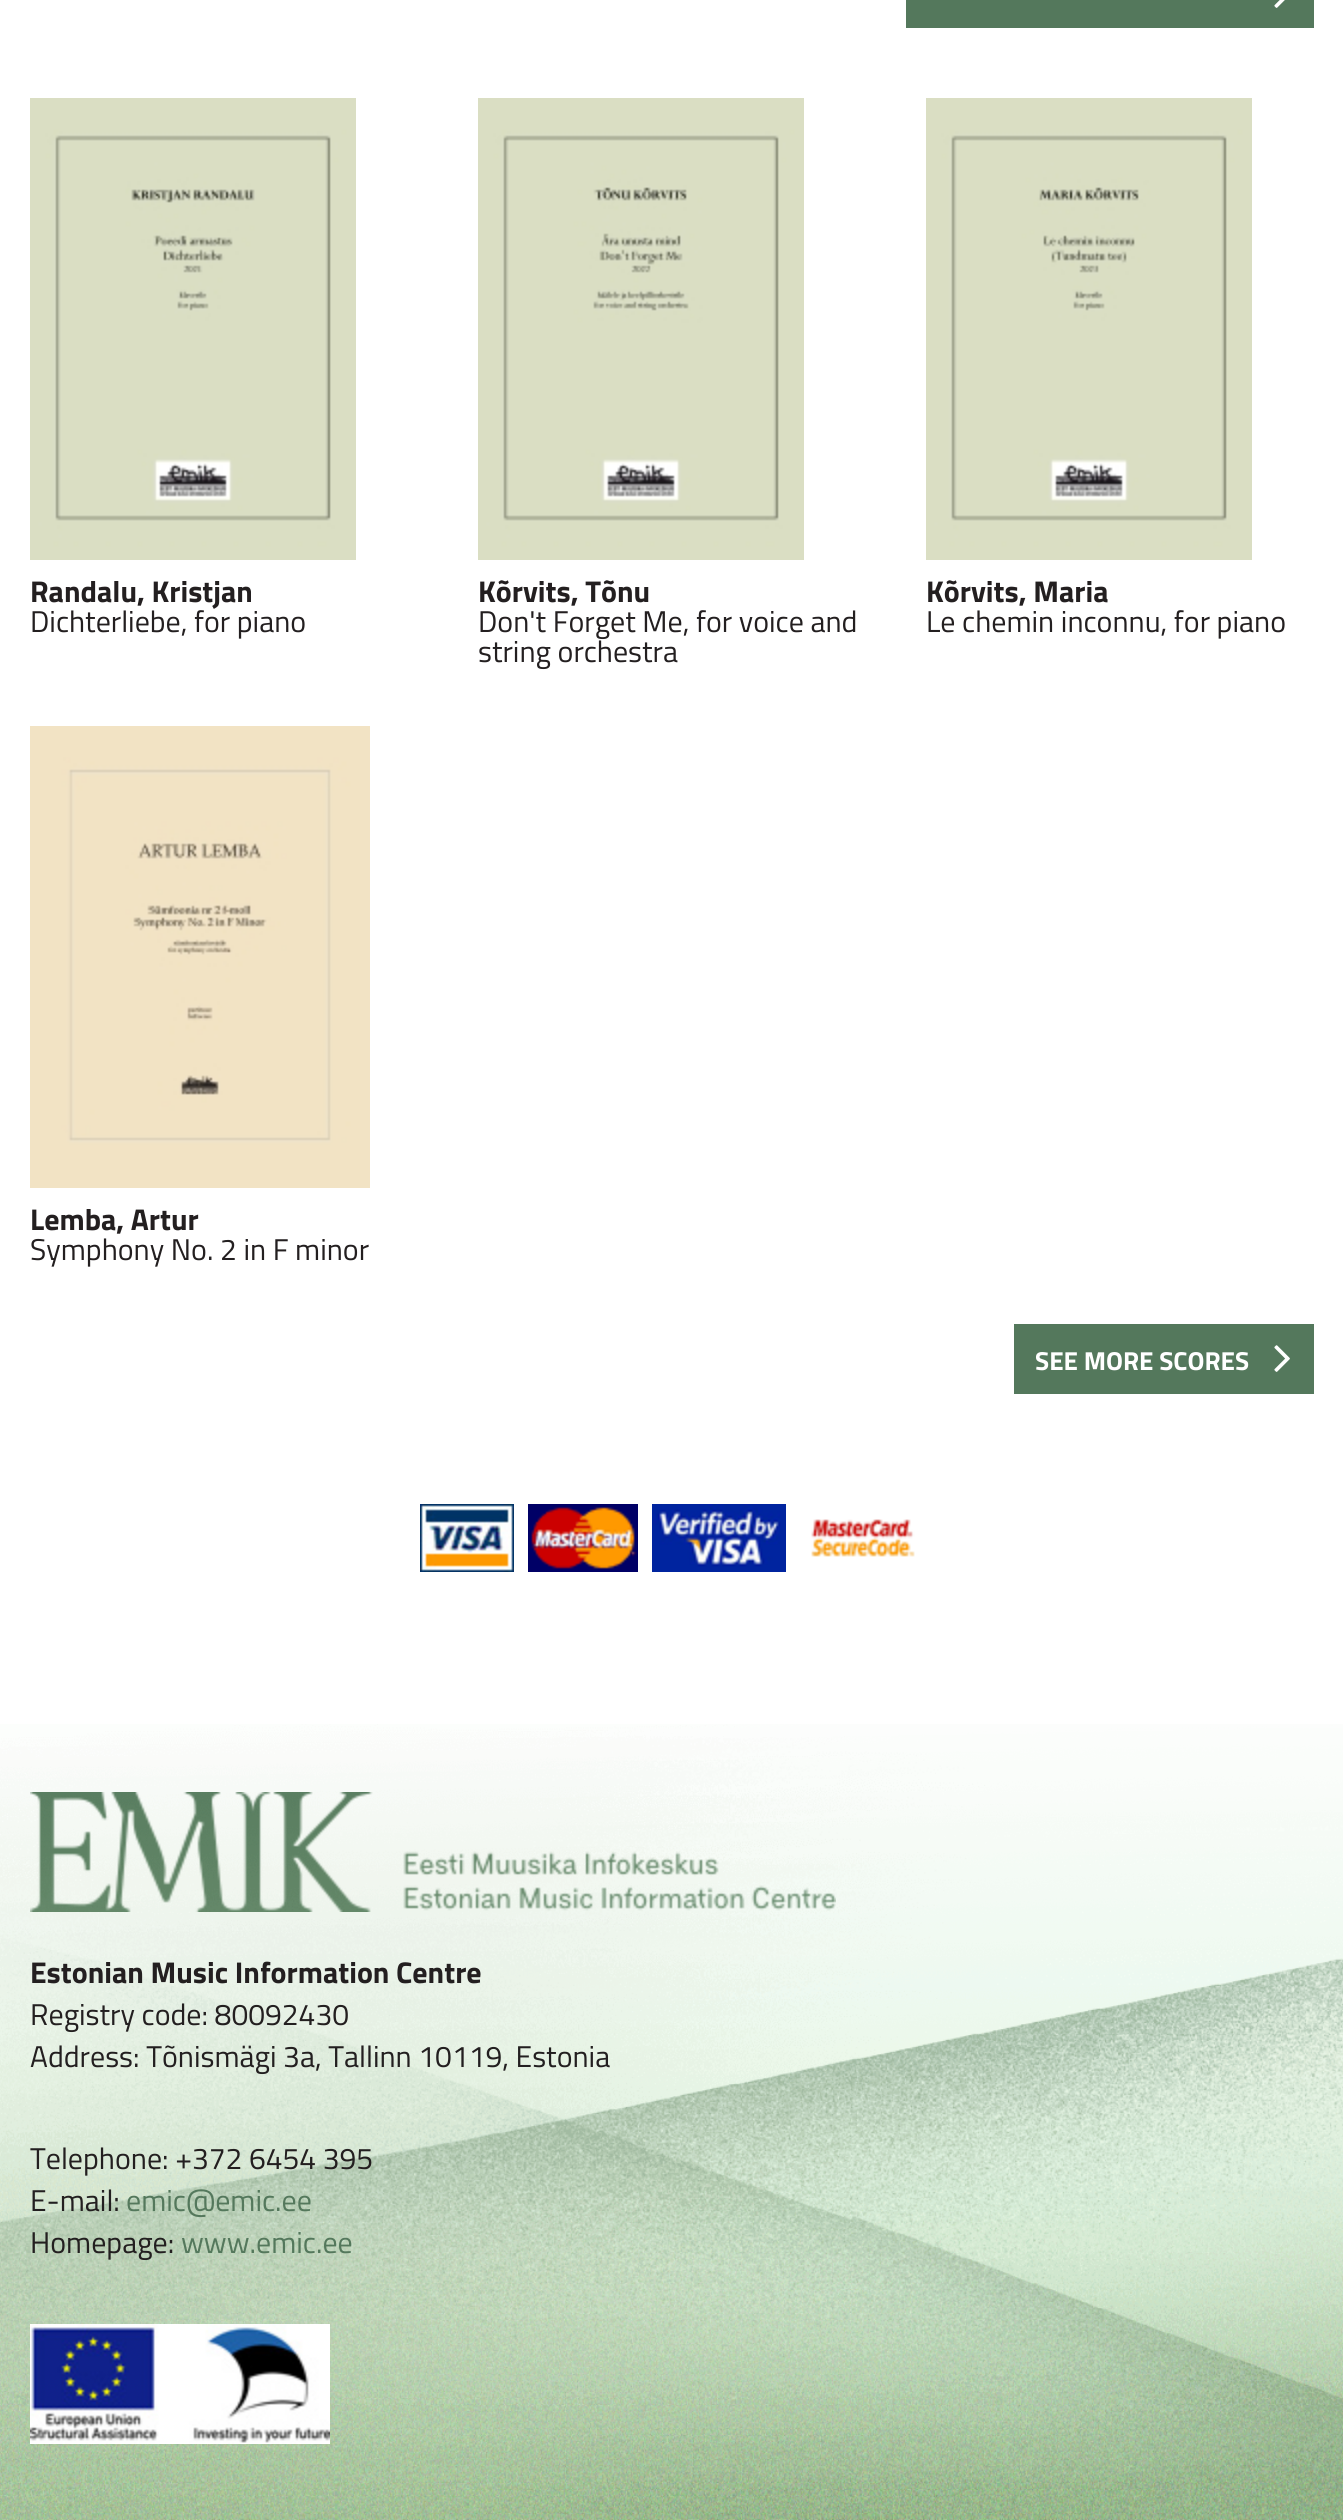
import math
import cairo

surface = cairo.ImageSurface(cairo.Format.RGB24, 1343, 2520)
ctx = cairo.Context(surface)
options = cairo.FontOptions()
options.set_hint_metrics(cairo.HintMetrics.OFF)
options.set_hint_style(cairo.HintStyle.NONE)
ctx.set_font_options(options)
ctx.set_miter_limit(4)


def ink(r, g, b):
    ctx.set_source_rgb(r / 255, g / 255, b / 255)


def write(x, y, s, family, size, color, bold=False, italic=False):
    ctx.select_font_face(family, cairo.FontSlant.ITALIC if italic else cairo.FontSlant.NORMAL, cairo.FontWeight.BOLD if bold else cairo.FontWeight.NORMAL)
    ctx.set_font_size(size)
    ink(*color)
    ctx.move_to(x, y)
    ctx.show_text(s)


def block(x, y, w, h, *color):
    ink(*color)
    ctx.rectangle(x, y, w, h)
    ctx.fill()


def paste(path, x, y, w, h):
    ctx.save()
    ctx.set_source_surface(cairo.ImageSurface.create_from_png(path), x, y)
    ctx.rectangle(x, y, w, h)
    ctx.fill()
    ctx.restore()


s1 = dict(family="Titillium Web", size=30, color=(35, 31, 32), bold=True)
s2 = dict(family="Titillium Web", size=30, color=(35, 31, 32))
s3 = dict(family="Titillium Web", size=26, color=(255, 255, 255), bold=True)
s4 = dict(family="Titillium Web", size=30, color=(84, 120, 92))

ink(255, 255, 255)
ctx.paint()
block(906, 0, 408, 28, 84, 120, 92)
paste("pic1.png", 1274, 0, 11, 8)
paste("pic2.png", 30, 98, 326, 462)
write(30, 602, "Randalu, Kristjan", **s1)
write(30, 632, "Dichterliebe, for piano", **s2)
paste("pic3.png", 478, 98, 326, 462)
write(478, 602, "Kõrvits, Tõnu", **s1)
write(478, 632, "Don't Forget Me, for voice and", **s2)
write(478, 662, "string orchestra", **s2)
paste("pic4.png", 926, 98, 326, 462)
write(926, 602, "Kõrvits, Maria", **s1)
write(926, 632, "Le chemin inconnu, for piano", **s2)
paste("pic5.png", 30, 726, 340, 462)
write(30, 1230, "Lemba, Artur", **s1)
write(30, 1260, "Symphony No. 2 in F minor", **s2)
block(1014, 1324, 300, 70, 84, 120, 92)
write(1035, 1370, "SEE MORE SCORES", **s3)
paste("pic6.png", 1274, 1345, 16, 27)
paste("pic7.png", 420, 1504, 94, 68)
paste("pic8.png", 528, 1504, 110, 68)
paste("pic9.png", 652, 1504, 134, 68)
paste("pic10.png", 811, 1519, 104, 38)
paste("pic12.png", 30, 1792, 806, 120)
paste("pic11.png", 0, 1724, 1343, 796)
write(30, 1983, "Estonian Music Information Centre", **s1)
write(30, 2025, "Registry code: 80092430", **s2)
write(30, 2067, "Address: Tõnismägi 3a, Tallinn 10119, Estonia", **s2)
write(30, 2169, "Telephone: +372 6454 395", **s2)
write(30, 2211, "E-mail:", **s2)
write(126, 2211, "emic@emic.ee", **s4)
write(30, 2253, "Homepage:", **s2)
write(181, 2253, "www.emic.ee", **s4)
paste("pic13.png", 30, 2324, 300, 120)
surface.write_to_png("screenshot.png")
